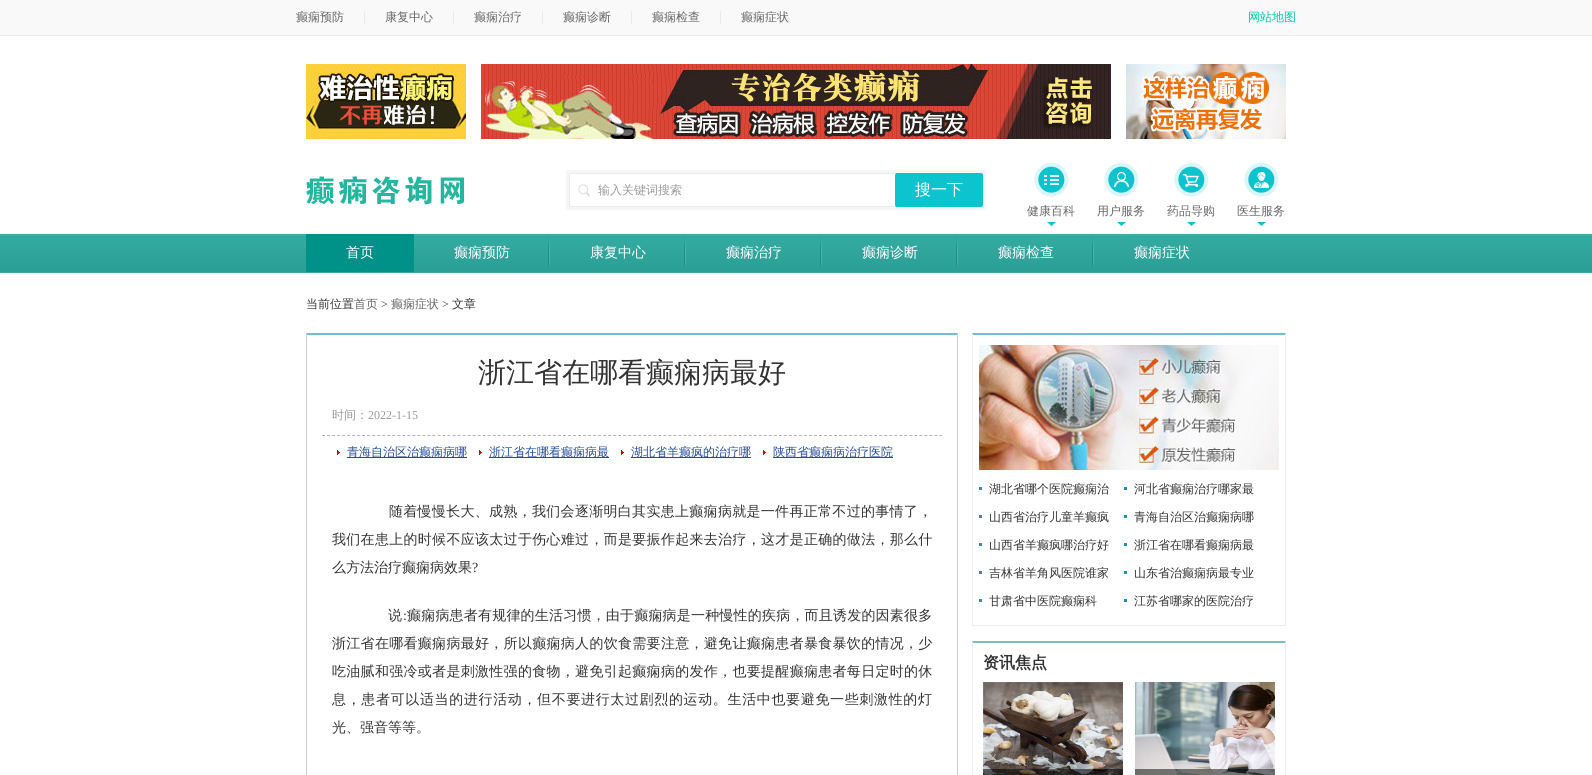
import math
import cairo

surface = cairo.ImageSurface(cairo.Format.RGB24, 1592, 775)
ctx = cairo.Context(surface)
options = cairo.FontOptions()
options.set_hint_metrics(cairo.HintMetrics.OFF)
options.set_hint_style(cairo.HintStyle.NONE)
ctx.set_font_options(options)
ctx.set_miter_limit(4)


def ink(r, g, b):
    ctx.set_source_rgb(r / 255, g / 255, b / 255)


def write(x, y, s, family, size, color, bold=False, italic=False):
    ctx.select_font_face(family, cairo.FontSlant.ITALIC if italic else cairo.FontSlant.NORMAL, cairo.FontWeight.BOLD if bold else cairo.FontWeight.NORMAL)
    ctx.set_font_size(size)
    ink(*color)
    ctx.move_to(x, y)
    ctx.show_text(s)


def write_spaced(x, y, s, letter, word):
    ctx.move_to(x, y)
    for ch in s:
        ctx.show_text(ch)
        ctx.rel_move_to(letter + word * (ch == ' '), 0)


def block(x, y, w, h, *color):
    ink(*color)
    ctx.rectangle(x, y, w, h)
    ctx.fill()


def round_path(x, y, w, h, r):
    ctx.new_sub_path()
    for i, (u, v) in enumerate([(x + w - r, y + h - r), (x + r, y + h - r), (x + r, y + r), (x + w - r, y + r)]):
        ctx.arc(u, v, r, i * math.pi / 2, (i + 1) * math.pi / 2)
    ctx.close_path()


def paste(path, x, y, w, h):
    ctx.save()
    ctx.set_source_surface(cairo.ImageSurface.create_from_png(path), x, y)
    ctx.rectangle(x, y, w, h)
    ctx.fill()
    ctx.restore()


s1 = dict(family="WenQuanYi Zen Hei Medium", size=12, color=(102, 102, 102))
s2 = dict(family="WenQuanYi Zen Hei Medium", size=12, color=(0, 200, 170))
s3 = dict(family="WenQuanYi Zen Hei Medium", size=12, color=(154, 154, 154))
s4 = dict(family="WenQuanYi Zen Hei Medium", size=16, color=(255, 255, 255))
s5 = dict(family="WenQuanYi Zen Hei Medium", size=14, color=(255, 255, 255))
s6 = dict(family="WenQuanYi Zen Hei Medium", size=12, color=(51, 51, 51))
s7 = dict(family="Liberation Serif", size=12, color=(51, 51, 51))
s8 = dict(family="WenQuanYi Zen Hei Medium", size=28, color=(51, 51, 51))
s9 = dict(family="Liberation Serif", size=12, color=(154, 154, 154))
s10 = dict(family="WenQuanYi Zen Hei Medium", size=12, color=(36, 76, 157))
s11 = dict(family="WenQuanYi Zen Hei Medium", size=14, color=(51, 51, 51))
s12 = dict(family="Liberation Serif", size=14, color=(51, 51, 51))
s13 = dict(family="WenQuanYi Zen Hei", size=16, color=(51, 51, 51), bold=True)

ink(255, 255, 255)
ctx.paint()
block(0, 0, 1592, 35, 249, 249, 249)
block(0, 35, 1592, 1, 238, 238, 238)
write(296, 21, "癫痫预防", **s1)
block(364, 11, 1, 13, 234, 234, 234)
write(385, 21, "康复中心", **s1)
block(453, 11, 1, 13, 234, 234, 234)
write(474, 21, "癫痫治疗", **s1)
block(542, 11, 1, 13, 234, 234, 234)
write(563, 21, "癫痫诊断", **s1)
block(631, 11, 1, 13, 234, 234, 234)
write(652, 21, "癫痫检查", **s1)
block(720, 11, 1, 13, 234, 234, 234)
write(741, 21, "癫痫症状", **s1)
write(1248, 21, "网站地图", **s2)
paste("pic1.png", 306, 64, 160, 75)
paste("pic2.png", 481, 64, 630, 75)
paste("pic3.png", 1126, 64, 160, 75)
paste("pic4.png", 306, 176, 158, 29)
ink(246, 246, 246)
round_path(566, 170, 420, 40, 2)
ctx.fill()
round_path(569.5, 173.5, 413, 33, 1.5)
ink(234, 234, 234)
ctx.set_line_width(1)
ctx.stroke()
block(570, 174, 326, 32, 255, 255, 255)
paste("pic5.png", 578, 184, 12, 13)
write(598, 194, "输入关键词搜索", **s3)
ink(13, 195, 206)
round_path(895, 173, 88, 34, 2)
ctx.fill()
write(915, 195, "搜一下", **s4)
paste("pic6.png", 1034, 162, 35, 35)
write(1027, 215, "健康百科", **s1)
paste("pic7.png", 1047, 222, 9, 4)
paste("pic8.png", 1104, 162, 35, 35)
write(1097, 215, "用户服务", **s1)
paste("pic7.png", 1117, 222, 9, 4)
paste("pic9.png", 1174, 162, 35, 35)
write(1167, 215, "药品导购", **s1)
paste("pic7.png", 1187, 222, 9, 4)
paste("pic10.png", 1244, 162, 35, 35)
write(1237, 215, "医生服务", **s1)
paste("pic7.png", 1257, 222, 9, 4)
paste("pic11.png", 0, 234, 1592, 39)
block(306, 234, 108, 38, 0, 146, 137)
write(346, 257, "首页", **s5)
paste("pic12.png", 548, 234, 2, 38)
write(454, 257, "癫痫预防", **s5)
paste("pic12.png", 684, 234, 2, 38)
write(590, 257, "康复中心", **s5)
paste("pic12.png", 820, 234, 2, 38)
write(726, 257, "癫痫治疗", **s5)
paste("pic12.png", 956, 234, 2, 38)
write(862, 257, "癫痫诊断", **s5)
paste("pic12.png", 1092, 234, 2, 38)
write(998, 257, "癫痫检查", **s5)
write(1134, 257, "癫痫症状", **s5)
write(306, 308, "当前位置", **s6)
write(354, 308, "首页", **s1)
write(381, 308, ">", **s7)
write(391, 308, "癫痫症状", **s1)
write(442, 308, ">", **s7)
write(452, 308, "文章", **s6)
ink(117, 190, 209)
ctx.new_path()
ctx.move_to(306, 333)
ctx.line_to(958, 333)
ctx.line_to(957, 335)
ctx.line_to(307, 335)
ctx.close_path()
ctx.fill()
ink(204, 204, 204)
ctx.new_path()
ctx.move_to(958, 333)
ctx.line_to(958, 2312)
ctx.line_to(957, 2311)
ctx.line_to(957, 335)
ctx.close_path()
ctx.fill()
ctx.new_path()
ctx.move_to(306, 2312)
ctx.line_to(306, 333)
ctx.line_to(307, 335)
ctx.line_to(307, 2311)
ctx.close_path()
ctx.fill()
ctx.new_path()
ctx.move_to(322, 435.5)
ctx.line_to(942, 435.5)
ink(181, 181, 181)
ctx.set_dash([3, 2.02])
ctx.stroke()
write(478, 382, "浙江省在哪看癫痫病最好", **s8)
write(332, 419, "时间：", **s3)
write(368, 419, "2022-1-15", **s9)
paste("pic13.png", 337, 450, 3, 5)
block(347, 457, 120, 1, 36, 76, 157)
write(347, 456, "青海自治区治癫痫病哪", **s10)
paste("pic13.png", 479, 450, 3, 5)
block(489, 457, 120, 1, 36, 76, 157)
write(489, 456, "浙江省在哪看癫痫病最", **s10)
paste("pic13.png", 621, 450, 3, 5)
block(631, 457, 120, 1, 36, 76, 157)
write(631, 456, "湖北省羊癫疯的治疗哪", **s10)
paste("pic13.png", 763, 450, 3, 5)
block(773, 457, 120, 1, 36, 76, 157)
write(773, 456, "陕西省癫痫病治疗医院", **s10)
ctx.set_font_size(14)
ink(51, 51, 51)
write_spaced(389, 516, "随着慢慢长大、成熟，我们会逐渐明白其实患上癫痫病就是一件再正常不过的事情了，", 0.3, 0)
write_spaced(332, 544, "我们在患上的时候不应该太过于伤心难过，而是要振作起来去治疗，这才是正确的做法，那么什", 0.3, 0)
write(332, 572, "么方法治疗癫痫病效果", **s11)
write(472, 572, "?", **s12)
ctx.select_font_face("WenQuanYi Zen Hei Medium")
write_spaced(388, 620, "说", 0.2, 0)
ctx.select_font_face("Liberation Serif")
write_spaced(403, 620, ":", 0.2, 0)
ctx.select_font_face("WenQuanYi Zen Hei Medium")
write_spaced(407, 620, "癫痫病患者有规律的生活习惯，由于癫痫病是一种慢性的疾病，而且诱发的因素很多", 0.2, 0)
write_spaced(332, 648, "浙江省在哪看癫痫病最好，所以癫痫病人的饮食需要注意，避免让癫痫患者暴食暴饮的情况，少", 0.3, 0)
write_spaced(332, 676, "吃油腻和强冷或者是刺激性强的食物，避免引起癫痫病的发作，也要提醒癫痫患者每日定时的休", 0.3, 0)
write_spaced(332, 704, "息，患者可以适当的进行活动，但不要进行太过剧烈的运动。生活中也要避免一些刺激性的灯", 0.65, 0)
write(332, 732, "光、强音等等。", **s11)
ink(117, 190, 209)
ctx.new_path()
ctx.move_to(972, 333)
ctx.line_to(1286, 333)
ctx.line_to(1285, 335)
ctx.line_to(973, 335)
ctx.close_path()
ctx.fill()
ink(237, 237, 237)
ctx.new_path()
ctx.move_to(1286, 333)
ctx.line_to(1286, 626)
ctx.line_to(1285, 625)
ctx.line_to(1285, 335)
ctx.close_path()
ctx.fill()
block(972, 625, 314, 1, 237, 237, 237)
ctx.new_path()
ctx.move_to(972, 626)
ctx.line_to(972, 333)
ctx.line_to(973, 335)
ctx.line_to(973, 625)
ctx.close_path()
ctx.fill()
paste("pic14.png", 979, 345, 300, 125)
block(979, 487, 3, 3, 33, 148, 173)
write(989, 493, "湖北省哪个医院癫痫治", **s6)
block(1124, 487, 3, 3, 33, 148, 173)
write(1134, 493, "河北省癫痫治疗哪家最", **s6)
block(979, 515, 3, 3, 33, 148, 173)
write(989, 521, "山西省治疗儿童羊癫疯", **s6)
block(1124, 515, 3, 3, 33, 148, 173)
write(1134, 521, "青海自治区治癫痫病哪", **s6)
block(979, 543, 3, 3, 33, 148, 173)
write(989, 549, "山西省羊癫疯哪治疗好", **s6)
block(1124, 543, 3, 3, 33, 148, 173)
write(1134, 549, "浙江省在哪看癫痫病最", **s6)
block(979, 571, 3, 3, 33, 148, 173)
write(989, 577, "吉林省羊角风医院谁家", **s6)
block(1124, 571, 3, 3, 33, 148, 173)
write(1134, 577, "山东省治癫痫病最专业", **s6)
block(979, 599, 3, 3, 33, 148, 173)
write(989, 605, "甘肃省中医院癫痫科", **s6)
block(1124, 599, 3, 3, 33, 148, 173)
write(1134, 605, "江苏省哪家的医院治疗", **s6)
ink(117, 190, 209)
ctx.new_path()
ctx.move_to(972, 641)
ctx.line_to(1286, 641)
ctx.line_to(1285, 643)
ctx.line_to(973, 643)
ctx.close_path()
ctx.fill()
ink(237, 237, 237)
ctx.new_path()
ctx.move_to(1286, 641)
ctx.line_to(1286, 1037)
ctx.line_to(1285, 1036)
ctx.line_to(1285, 643)
ctx.close_path()
ctx.fill()
ctx.new_path()
ctx.move_to(972, 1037)
ctx.line_to(972, 641)
ctx.line_to(973, 643)
ctx.line_to(973, 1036)
ctx.close_path()
ctx.fill()
write(983, 668, "资讯焦点", **s13)
paste("pic15.png", 983, 682, 140, 93)
ctx.set_source_rgba(0, 0, 0, 0.5)
ctx.rectangle(983, 769, 140, 6)
ctx.fill()
paste("pic16.png", 1135, 682, 140, 93)
ctx.rectangle(1135, 769, 140, 6)
ctx.fill()
surface.write_to_png("screenshot.png")
